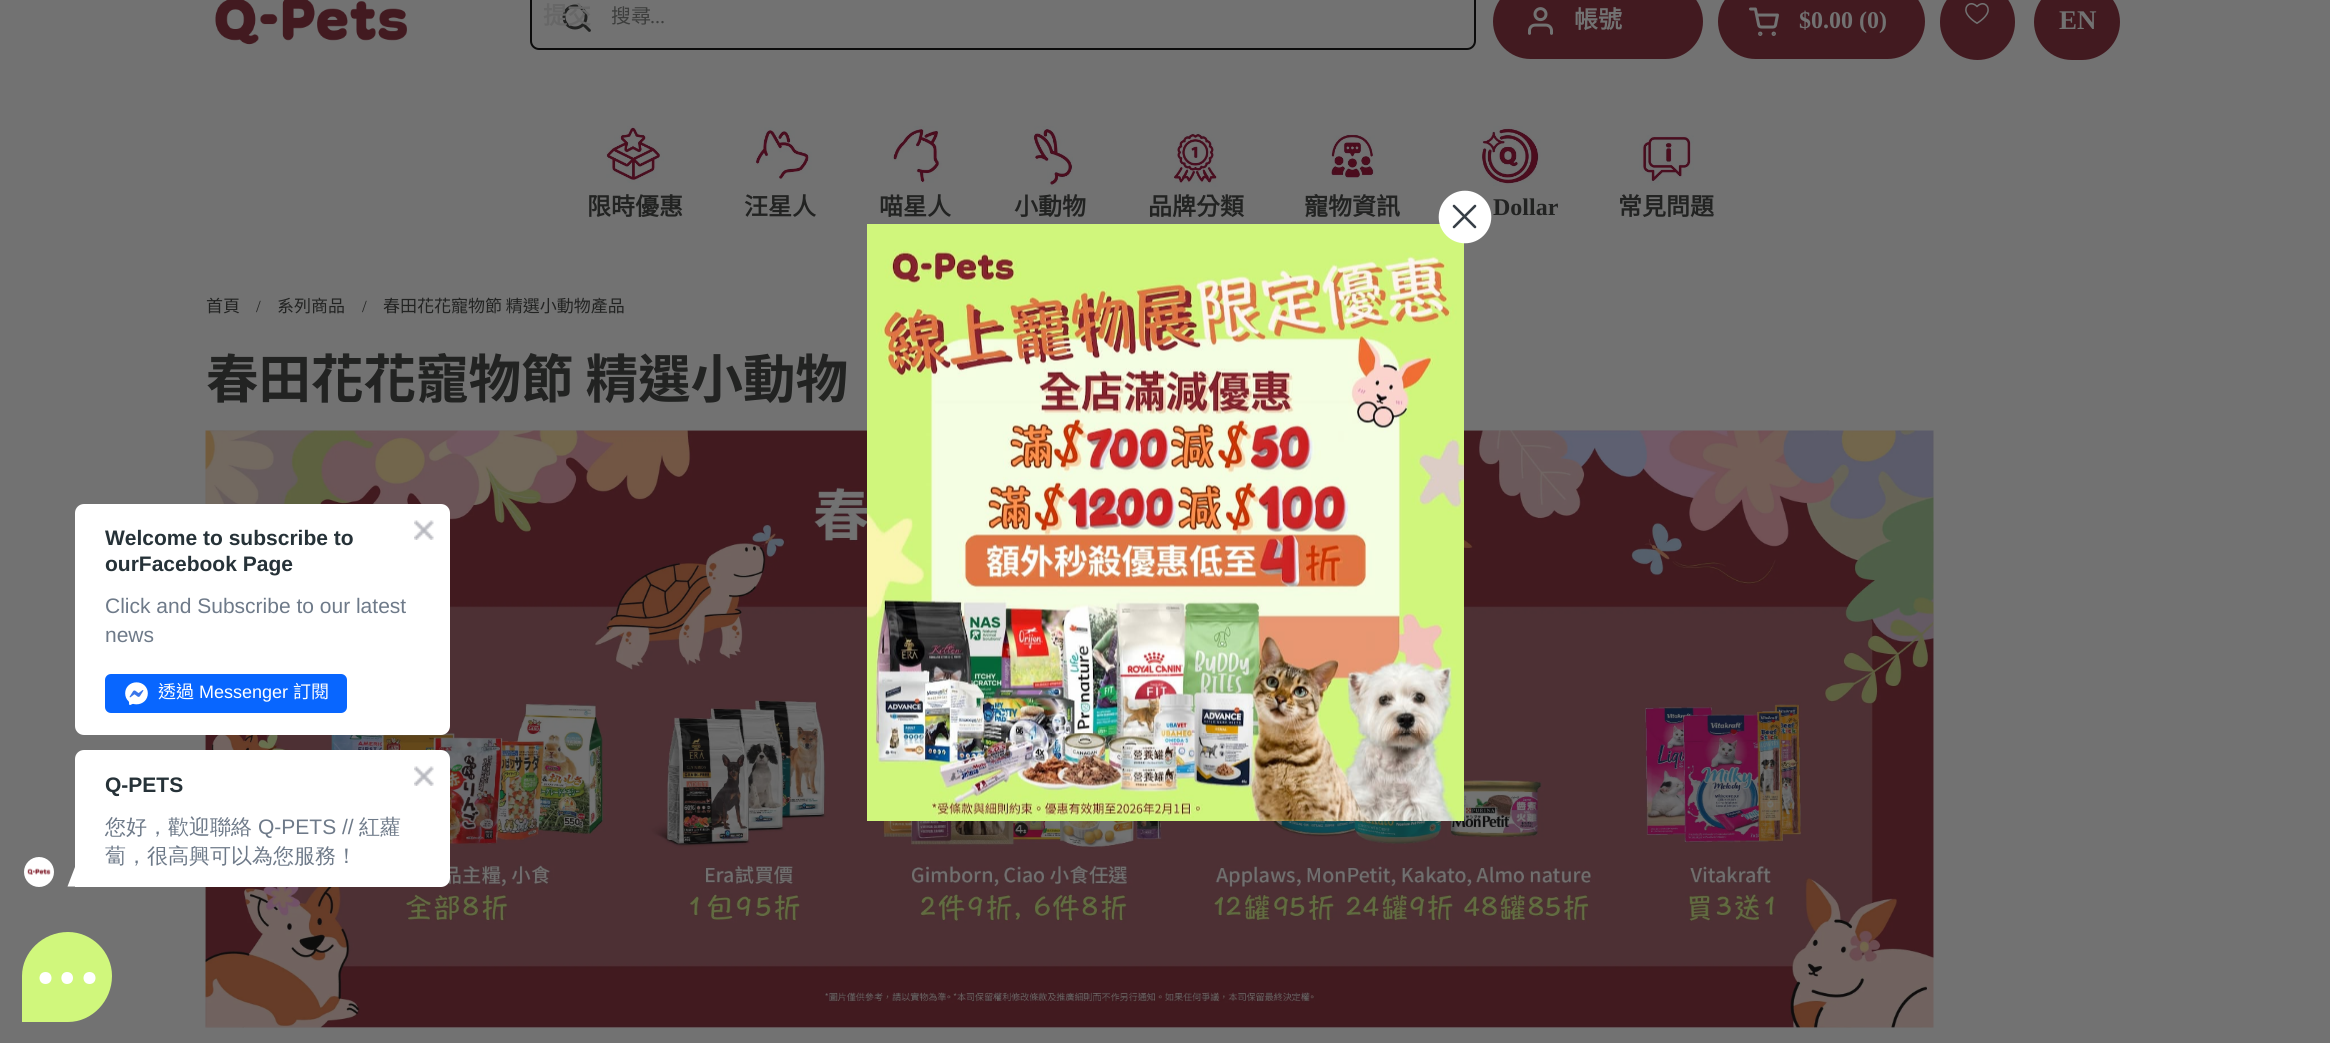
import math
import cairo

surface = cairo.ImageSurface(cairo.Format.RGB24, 2330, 1043)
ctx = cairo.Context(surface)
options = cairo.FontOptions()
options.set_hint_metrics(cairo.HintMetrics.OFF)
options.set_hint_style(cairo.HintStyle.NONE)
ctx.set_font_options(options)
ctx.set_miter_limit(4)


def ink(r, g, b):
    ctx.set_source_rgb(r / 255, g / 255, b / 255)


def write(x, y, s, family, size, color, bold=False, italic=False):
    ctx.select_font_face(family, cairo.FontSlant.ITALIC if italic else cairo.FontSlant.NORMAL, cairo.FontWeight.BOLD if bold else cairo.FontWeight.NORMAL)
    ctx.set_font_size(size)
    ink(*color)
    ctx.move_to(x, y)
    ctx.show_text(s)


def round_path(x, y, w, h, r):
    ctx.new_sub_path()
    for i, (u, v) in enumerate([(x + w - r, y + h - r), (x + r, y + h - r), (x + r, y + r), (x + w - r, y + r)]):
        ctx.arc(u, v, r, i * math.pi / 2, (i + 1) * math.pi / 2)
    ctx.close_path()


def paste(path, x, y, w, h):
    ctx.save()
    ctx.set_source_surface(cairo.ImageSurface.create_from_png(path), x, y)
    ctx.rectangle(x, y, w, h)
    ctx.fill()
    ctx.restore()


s1 = dict(family="Noto Sans CJK TC", size=24, color=(103, 103, 103), bold=True)
s2 = dict(family="Noto Sans CJK TC", size=20, color=(61, 62, 61))
s3 = dict(family="Liberation Serif", size=20, color=(61, 62, 61))
s4 = dict(family="Noto Sans CJK TC", size=24, color=(114, 114, 114), bold=True)
s5 = dict(family="Liberation Serif", size=24, color=(114, 114, 114), bold=True)
s6 = dict(family="Liberation Serif", size=27, color=(114, 114, 114), bold=True)
s7 = dict(family="Noto Sans CJK TC", size=24, color=(34, 35, 34), bold=True)
s8 = dict(family="Liberation Serif", size=24, color=(34, 35, 34), bold=True)
s9 = dict(family="Noto Sans CJK TC", size=17, color=(34, 35, 34))
s10 = dict(family="Liberation Serif", size=17, color=(34, 35, 34))
s11 = dict(family="Noto Sans TC Thin", size=52.5, color=(34, 35, 34))
s12 = dict(family="Liberation Sans", size=21, color=(38, 50, 56), bold=True)
s13 = dict(family="Liberation Sans", size=21, color=(110, 122, 137))
s14 = dict(family="Noto Sans CJK TC", size=18, color=(255, 255, 255))
s15 = dict(family="Liberation Sans", size=18, color=(255, 255, 255))
s16 = dict(family="WenQuanYi Zen Hei Medium", size=21, color=(110, 122, 137))

ink(114, 114, 114)
ctx.paint()
paste("pic1.png", 215, 0, 192, 45)
round_path(531, -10, 944, 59, 8)
ink(12, 12, 12)
ctx.stroke()
paste("pic2.png", 562, 4, 29, 28)
write(543, 24, "提交", **s1)
write(611, 23, "搜尋", **s2)
write(650, 23, "...", **s3)
ink(66, 26, 32)
round_path(1494, -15, 208, 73, 36.5)
ctx.fill_preserve()
ctx.stroke()
paste("pic3.png", 1528, 7, 25, 28)
write(1574, 28, "帳號", **s4)
ink(66, 26, 32)
round_path(1719, -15, 205, 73, 36.5)
ctx.fill_preserve()
ctx.stroke()
paste("pic4.png", 1749, 7, 30, 29)
write(1799, 28, "$0.00 (0)", **s5)
ink(66, 26, 32)
round_path(1940, -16, 75, 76, 37.5)
ctx.fill()
paste("pic5.png", 1965, 3, 24, 21)
round_path(2035, -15, 84, 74, 37)
ctx.fill_preserve()
ctx.stroke()
write(2059, 29, "EN", **s6)
paste("pic6.png", 606, 126, 58, 59)
write(587, 215, "限時優惠", **s7)
paste("pic7.png", 755, 127, 57, 52)
write(744, 215, "汪星人", **s7)
paste("pic8.png", 892, 126, 50, 57)
write(879, 215, "喵星人", **s7)
paste("pic9.png", 1030, 126, 43, 61)
write(1014, 215, "小動物", **s7)
paste("pic10.png", 1172, 131, 46, 56)
write(1148, 215, "品牌分類", **s7)
paste("pic11.png", 1331, 134, 44, 45)
write(1304, 215, "寵物資訊", **s7)
paste("pic12.png", 1480, 126, 61, 60)
write(1493, 215, "Dollar", **s8)
paste("pic13.png", 1639, 135, 55, 50)
write(1618, 215, "常見問題", **s7)
write(206, 312, "首頁", **s9)
write(256, 312, "/", **s10)
write(277, 312, "系列商品", **s9)
write(362, 312, "/", **s10)
write(383, 312, "春田花花寵物節 精選小動物產品", **s9)
write(206, 398, "春田花花寵物節 精選小動物", **s11)
paste("pic14.png", 205, 430, 1729, 598)
paste("pic15.png", 867, 224, 597, 597)
ink(255, 255, 255)
ctx.arc(1465, 217, 25, 0, 2 * math.pi)
ctx.fill_preserve()
ctx.set_line_width(2.6)
ctx.stroke()
ctx.new_path()
ctx.move_to(1454, 206)
ctx.line_to(1475, 227)
ctx.move_to(1454, 227)
ctx.line_to(1475, 206)
ctx.close_path()
ink(55, 63, 71)
ctx.set_line_cap(cairo.LineCap.ROUND)
ctx.set_line_join(cairo.LineJoin.ROUND)
ctx.stroke()
ink(255, 255, 255)
round_path(75, 504, 375, 231, 9)
ctx.fill()
write(105, 545, "Welcome to subscribe to", **s12)
write(105, 571, "ourFacebook Page", **s12)
paste("pic16.png", 414, 520, 20, 20)
write(105, 613, "Click and Subscribe to our latest", **s13)
write(105, 642, "news", **s13)
ink(8, 102, 255)
round_path(105, 674, 242, 39, 6)
ctx.fill()
paste("pic17.png", 125, 682, 23, 23)
write(158, 698, "透過", **s14)
write(199, 698, "Messenger", **s15)
write(293, 698, "訂閱", **s14)
ctx.new_path()
ctx.move_to(84, 750)
ctx.line_to(441, 750)
ctx.curve_to(446, 750, 450, 754, 450, 759)
ctx.line_to(450, 878)
ctx.curve_to(450, 883, 446, 887, 441, 887)
ctx.line_to(75, 887)
ctx.line_to(75, 759)
ctx.curve_to(75, 754, 79, 750, 84, 750)
ctx.close_path()
ctx.fill()
write(105, 792, "Q-PETS", **s12)
paste("pic16.png", 414, 766, 20, 20)
write(105, 834, "您好，歡迎聯絡", **s16)
write(258, 834, "Q-PETS //", **s13)
write(359, 834, "紅蘿", **s16)
write(105, 863, "蔔，很高興可以為您服務！", **s16)
ink(255, 255, 255)
ctx.new_path()
ctx.arc(39, 872, 13.5, 0, 2 * math.pi)
ctx.fill_preserve()
ctx.set_line_width(3)
ctx.set_line_cap(cairo.LineCap.BUTT)
ctx.set_line_join(cairo.LineJoin.MITER)
ctx.stroke()
paste("pic18.png", 27, 868, 24, 7)
ctx.new_path()
ctx.move_to(75, 886.5)
ctx.line_to(67.5, 886.5)
ctx.line_to(75, 867)
ctx.close_path()
ctx.fill()
ink(208, 247, 124)
ctx.new_path()
ctx.move_to(68, 932)
ctx.curve_to(43, 932, 22, 952, 22, 976)
ctx.line_to(22, 1022)
ctx.line_to(68, 1022)
ctx.curve_to(92, 1022, 112, 1001, 112, 976)
ctx.curve_to(112, 952, 92, 932, 68, 932)
ctx.close_path()
ctx.fill()
ink(255, 255, 255)
ctx.new_path()
ctx.move_to(89.5, 972)
ctx.curve_to(81.5, 972, 81.5, 984, 89.5, 984)
ctx.curve_to(97.5, 984, 97.5, 972, 89.5, 972)
ctx.close_path()
ctx.move_to(45.5, 972)
ctx.curve_to(37.5, 972, 37.5, 984, 45.5, 984)
ctx.curve_to(53.5, 984, 53.5, 972, 45.5, 972)
ctx.close_path()
ctx.fill()
ctx.new_path()
ctx.move_to(67, 972)
ctx.curve_to(59.5, 972, 59.5, 984, 67, 984)
ctx.curve_to(75, 984, 75, 972, 67, 972)
ctx.close_path()
ctx.fill()
surface.write_to_png("screenshot.png")
